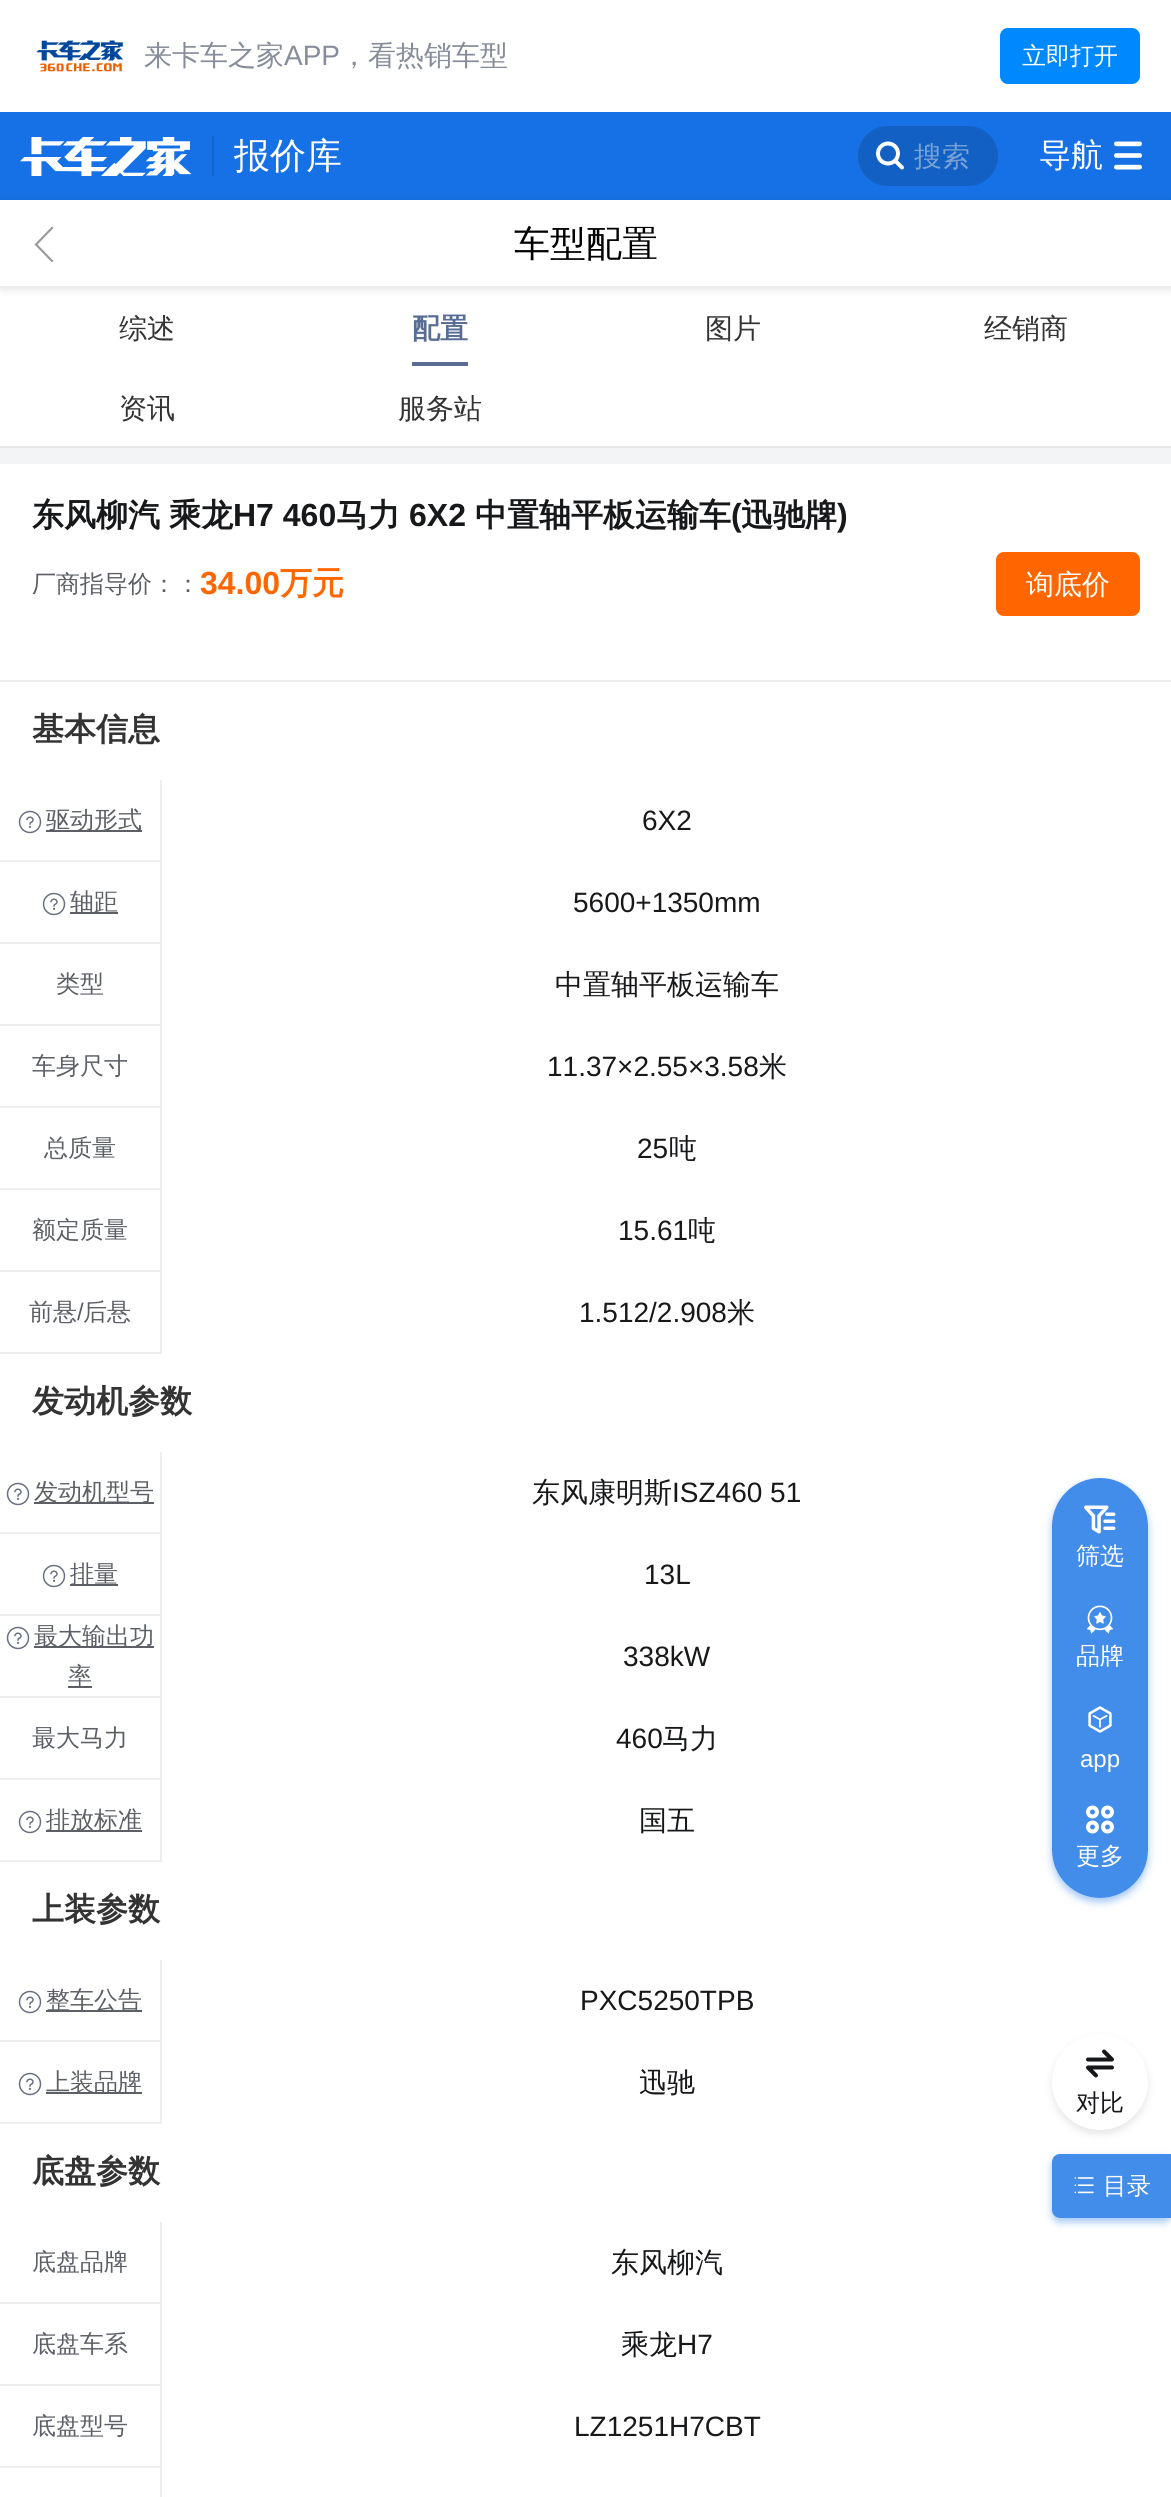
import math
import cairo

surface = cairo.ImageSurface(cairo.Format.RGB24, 1171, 2497)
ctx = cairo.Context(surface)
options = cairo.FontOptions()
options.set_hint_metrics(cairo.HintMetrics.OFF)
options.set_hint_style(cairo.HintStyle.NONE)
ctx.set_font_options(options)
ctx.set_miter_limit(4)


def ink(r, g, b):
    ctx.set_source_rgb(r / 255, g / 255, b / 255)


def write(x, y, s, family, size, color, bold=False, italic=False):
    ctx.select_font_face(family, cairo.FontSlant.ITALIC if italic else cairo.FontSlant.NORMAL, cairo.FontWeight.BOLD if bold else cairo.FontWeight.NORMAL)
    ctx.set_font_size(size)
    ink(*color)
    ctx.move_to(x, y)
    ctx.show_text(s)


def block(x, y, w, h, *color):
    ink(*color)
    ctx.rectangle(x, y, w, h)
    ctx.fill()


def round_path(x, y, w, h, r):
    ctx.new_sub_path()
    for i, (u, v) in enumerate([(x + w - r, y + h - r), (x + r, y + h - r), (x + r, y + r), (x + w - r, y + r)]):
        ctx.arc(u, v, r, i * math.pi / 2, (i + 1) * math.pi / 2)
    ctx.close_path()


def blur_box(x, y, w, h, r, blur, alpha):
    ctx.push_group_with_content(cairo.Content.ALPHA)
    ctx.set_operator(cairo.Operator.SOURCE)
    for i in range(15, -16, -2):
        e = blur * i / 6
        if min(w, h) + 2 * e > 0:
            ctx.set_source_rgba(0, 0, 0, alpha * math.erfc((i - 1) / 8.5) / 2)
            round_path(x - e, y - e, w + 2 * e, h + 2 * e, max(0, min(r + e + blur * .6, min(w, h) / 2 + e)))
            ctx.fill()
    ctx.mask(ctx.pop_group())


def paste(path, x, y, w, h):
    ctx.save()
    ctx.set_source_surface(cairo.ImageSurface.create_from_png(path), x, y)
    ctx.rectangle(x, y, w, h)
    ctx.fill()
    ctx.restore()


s1 = dict(family="WenQuanYi Zen Hei Medium", size=28, color=(134, 140, 153))
s2 = dict(family="Liberation Sans", size=28, color=(134, 140, 153))
s3 = dict(family="WenQuanYi Zen Hei Medium", size=24, color=(255, 255, 255))
s4 = dict(family="WenQuanYi Zen Hei Medium", size=36, color=(255, 255, 255))
s5 = dict(family="WenQuanYi Zen Hei Medium", size=28, color=(120, 162, 214))
s6 = dict(family="WenQuanYi Zen Hei Medium", size=32, color=(255, 255, 255))
s7 = dict(family="WenQuanYi Zen Hei Medium", size=36, color=(0, 0, 0))
s8 = dict(family="WenQuanYi Zen Hei Medium", size=28, color=(51, 51, 51))
s9 = dict(family="WenQuanYi Zen Hei", size=28, color=(88, 108, 148), bold=True)
s10 = dict(family="WenQuanYi Zen Hei", size=32, color=(23, 24, 26), bold=True)
s11 = dict(family="Liberation Sans", size=32, color=(23, 24, 26), bold=True)
s12 = dict(family="WenQuanYi Zen Hei Medium", size=24, color=(92, 96, 102))
s13 = dict(family="Liberation Sans", size=32, color=(255, 102, 0), bold=True)
s14 = dict(family="WenQuanYi Zen Hei", size=32, color=(255, 102, 0), bold=True)
s15 = dict(family="WenQuanYi Zen Hei Medium", size=28, color=(255, 255, 255))
s16 = dict(family="WenQuanYi Zen Hei", size=32, color=(51, 51, 51), bold=True)
s17 = dict(family="Liberation Sans", size=28, color=(23, 24, 26))
s18 = dict(family="WenQuanYi Zen Hei Medium", size=28, color=(23, 24, 26))
s19 = dict(family="Liberation Sans", size=24, color=(92, 96, 102))
s20 = dict(family="Liberation Sans", size=24, color=(255, 255, 255))
s21 = dict(family="WenQuanYi Zen Hei Medium", size=24, color=(23, 24, 26))

ink(243, 244, 245)
ctx.paint()
block(0, 0, 1171, 112, 255, 255, 255)
paste("pic1.png", 36, 40, 88, 32)
write(144, 65, "来卡车之家", **s1)
write(284, 65, "APP", **s2)
write(340, 65, "，看热销车型", **s1)
ink(0, 137, 255)
round_path(1000, 28, 140, 56, 8)
ctx.fill()
write(1022, 64, "立即打开", **s3)
block(0, 112, 1171, 88, 21, 113, 229)
paste("pic2.png", 20, 137, 172, 39)
block(212, 136, 2, 40, 19, 102, 206)
write(234, 168, "报价库", **s4)
ink(18, 96, 195)
round_path(858, 126, 140, 60, 30)
ctx.fill()
paste("pic3.png", 876, 141, 28, 29)
write(914, 166, "搜索", **s5)
write(1039, 166, "导航", **s6)
paste("pic4.png", 1114, 141, 28, 29)
block(0, 288, 1171, 158, 255, 255, 255)
ink(0, 0, 0)
blur_box(0, 202, 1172, 88, 0, 4, 0.1)
block(0, 200, 1171, 86, 255, 255, 255)
block(0, 286, 1171, 2, 238, 238, 238)
ink(153, 153, 153)
ctx.new_path()
ctx.move_to(34.5, 244.5)
ctx.line_to(52, 262.5)
ctx.line_to(53.5, 261)
ctx.line_to(37.5, 244.5)
ctx.line_to(53.5, 228)
ctx.line_to(52, 226.5)
ctx.close_path()
ctx.fill()
write(514, 256, "车型配置", **s7)
block(0, 446, 1171, 2, 228, 229, 230)
write(119, 338, "综述", **s8)
write(412, 338, "配置", **s9)
block(412, 362, 56, 4, 88, 108, 148)
write(705, 338, "图片", **s8)
write(984, 338, "经销商", **s8)
write(119, 418, "资讯", **s8)
write(398, 418, "服务站", **s8)
block(0, 464, 1171, 2033, 255, 255, 255)
write(32, 526, "东风柳汽", **s10)
write(169, 526, "乘龙", **s10)
write(233, 526, "H7 460", **s11)
write(336, 526, "马力", **s10)
write(409, 526, "6X2", **s11)
write(475, 526, "中置轴平板运输车", **s10)
write(731, 526, "(", **s11)
write(741, 526, "迅驰牌", **s10)
write(837, 526, ")", **s11)
write(32, 592, "厂商指导价：：", **s12)
write(200, 594, "34.00", **s13)
write(280, 594, "万元", **s14)
round_path(996, 552, 144, 64, 8)
ctx.fill()
write(1026, 594, "询底价", **s15)
block(0, 680, 1171, 2, 238, 238, 238)
block(160, 778, 2, 576, 238, 238, 238)
block(160, 778, 2, 2, 255, 255, 255)
write(32, 740, "基本信息", **s16)
paste("pic5.png", 18, 810, 24, 24)
block(46, 830, 96, 2, 92, 96, 102)
write(46, 828, "驱动形式", **s12)
write(642, 830, "6X2", **s17)
block(0, 860, 160, 2, 238, 238, 238)
paste("pic5.png", 42, 892, 24, 24)
block(70, 912, 48, 2, 92, 96, 102)
write(70, 910, "轴距", **s12)
write(573, 912, "5600+1350mm", **s17)
block(0, 942, 160, 2, 238, 238, 238)
write(56, 992, "类型", **s12)
write(555, 994, "中置轴平板运输车", **s18)
block(0, 1024, 160, 2, 238, 238, 238)
write(32, 1074, "车身尺寸", **s12)
write(547, 1076, "11.37×2.55×3.58", **s17)
write(759, 1076, "米", **s18)
block(0, 1106, 160, 2, 238, 238, 238)
write(44, 1156, "总质量", **s12)
write(637, 1158, "25", **s17)
write(669, 1158, "吨", **s18)
block(0, 1188, 160, 2, 238, 238, 238)
write(32, 1238, "额定质量", **s12)
write(618, 1240, "15.61", **s17)
write(688, 1240, "吨", **s18)
block(0, 1270, 160, 2, 238, 238, 238)
block(0, 1352, 160, 2, 238, 238, 238)
write(29, 1320, "前悬", **s12)
write(77, 1320, "/", **s19)
write(83, 1320, "后悬", **s12)
write(579, 1322, "1.512/2.908", **s17)
write(727, 1322, "米", **s18)
block(160, 1450, 2, 412, 238, 238, 238)
block(160, 1450, 2, 2, 255, 255, 255)
write(32, 1412, "发动机参数", **s16)
paste("pic5.png", 6, 1482, 24, 24)
block(34, 1502, 120, 2, 92, 96, 102)
write(34, 1500, "发动机型号", **s12)
write(532, 1502, "东风康明斯", **s18)
write(672, 1502, "ISZ460 51", **s17)
block(0, 1532, 160, 2, 238, 238, 238)
paste("pic5.png", 42, 1564, 24, 24)
block(70, 1584, 48, 2, 92, 96, 102)
write(70, 1582, "排量", **s12)
write(644, 1584, "13L", **s17)
block(0, 1614, 160, 2, 238, 238, 238)
paste("pic5.png", 6, 1626, 24, 24)
block(34, 1646, 120, 2, 92, 96, 102)
write(34, 1644, "最大输出功", **s12)
block(68, 1686, 24, 2, 92, 96, 102)
write(68, 1684, "率", **s12)
write(623, 1666, "338kW", **s17)
block(0, 1696, 160, 2, 238, 238, 238)
write(32, 1746, "最大马力", **s12)
write(616, 1748, "460", **s17)
write(662, 1748, "马力", **s18)
block(0, 1778, 160, 2, 238, 238, 238)
block(0, 1860, 160, 2, 238, 238, 238)
paste("pic5.png", 18, 1810, 24, 24)
block(46, 1830, 96, 2, 92, 96, 102)
write(46, 1828, "排放标准", **s12)
write(639, 1830, "国五", **s18)
block(160, 1958, 2, 166, 238, 238, 238)
block(160, 1958, 2, 2, 255, 255, 255)
write(32, 1920, "上装参数", **s16)
paste("pic5.png", 18, 1990, 24, 24)
block(46, 2010, 96, 2, 92, 96, 102)
write(46, 2008, "整车公告", **s12)
write(580, 2010, "PXC5250TPB", **s17)
block(0, 2040, 160, 2, 238, 238, 238)
block(0, 2122, 160, 2, 238, 238, 238)
paste("pic5.png", 18, 2072, 24, 24)
block(46, 2092, 96, 2, 92, 96, 102)
write(46, 2090, "上装品牌", **s12)
write(639, 2092, "迅驰", **s18)
block(160, 2220, 2, 277, 238, 238, 238)
block(160, 2220, 2, 2, 255, 255, 255)
write(32, 2182, "底盘参数", **s16)
block(0, 2466, 160, 2, 238, 238, 238)
write(32, 2270, "底盘品牌", **s12)
write(611, 2272, "东风柳汽", **s18)
block(0, 2302, 160, 2, 238, 238, 238)
write(32, 2352, "底盘车系", **s12)
write(621, 2354, "乘龙", **s18)
write(677, 2354, "H7", **s17)
block(0, 2384, 160, 2, 238, 238, 238)
write(32, 2434, "底盘型号", **s12)
write(574, 2436, "LZ1251H7CBT", **s17)
ctx.save()
ctx.set_fill_rule(cairo.FillRule.EVEN_ODD)
ctx.new_path()
ctx.move_to(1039, 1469)
ctx.line_to(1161, 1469)
ctx.line_to(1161, 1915)
ctx.line_to(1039, 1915)
ctx.close_path()
ctx.move_to(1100, 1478)
ctx.curve_to(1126.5, 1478, 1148, 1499.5, 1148, 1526)
ctx.line_to(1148, 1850)
ctx.curve_to(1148, 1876.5, 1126.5, 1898, 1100, 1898)
ctx.curve_to(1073.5, 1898, 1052, 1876.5, 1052, 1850)
ctx.line_to(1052, 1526)
ctx.curve_to(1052, 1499.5, 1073.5, 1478, 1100, 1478)
ctx.close_path()
ctx.clip()
ink(21, 113, 229)
blur_box(1052, 1482, 96, 420, 48, 4, 0.4)
ctx.restore()
ctx.set_source_rgba(0.082, 0.443, 0.898, 0.8)
round_path(1052, 1478, 96, 420, 48)
ctx.fill()
paste("pic6.png", 1084, 1505, 32, 29)
write(1076, 1564, "筛选", **s3)
paste("pic7.png", 1086, 1605, 28, 29)
write(1076, 1664, "品牌", **s3)
paste("pic8.png", 1088, 1706, 24, 27)
write(1080, 1767, "app", **s20)
paste("pic9.png", 1086, 1805, 28, 29)
write(1076, 1864, "更多", **s3)
ink(0, 0, 0)
blur_box(1052, 2038, 96, 96, 48, 4, 0.1)
ink(255, 255, 255)
ctx.arc(1100, 2082, 48, 0, 2 * math.pi)
ctx.fill()
paste("pic10.png", 1086, 2049, 28, 29)
write(1076, 2111, "对比", **s21)
ctx.save()
ctx.set_fill_rule(cairo.FillRule.EVEN_ODD)
ctx.new_path()
ctx.move_to(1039, 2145)
ctx.line_to(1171, 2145)
ctx.line_to(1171, 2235)
ctx.line_to(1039, 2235)
ctx.close_path()
ctx.move_to(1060, 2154)
ctx.line_to(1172, 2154)
ctx.line_to(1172, 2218)
ctx.line_to(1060, 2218)
ctx.curve_to(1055.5, 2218, 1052, 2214.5, 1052, 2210)
ctx.line_to(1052, 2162)
ctx.curve_to(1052, 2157.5, 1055.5, 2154, 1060, 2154)
ctx.close_path()
ctx.clip()
ink(21, 113, 229)
blur_box(1052, 2158, 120, 64, 8, 4, 0.4)
ctx.restore()
ctx.set_source_rgba(0.082, 0.443, 0.898, 0.8)
ctx.new_path()
ctx.move_to(1060, 2154)
ctx.line_to(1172, 2154)
ctx.line_to(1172, 2218)
ctx.line_to(1060, 2218)
ctx.curve_to(1055.5, 2218, 1052, 2214.5, 1052, 2210)
ctx.line_to(1052, 2162)
ctx.curve_to(1052, 2157.5, 1055.5, 2154, 1060, 2154)
ctx.close_path()
ctx.fill()
paste("pic11.png", 1074, 2177, 20, 17)
write(1103, 2194, "目录", **s3)
surface.write_to_png("screenshot.png")
